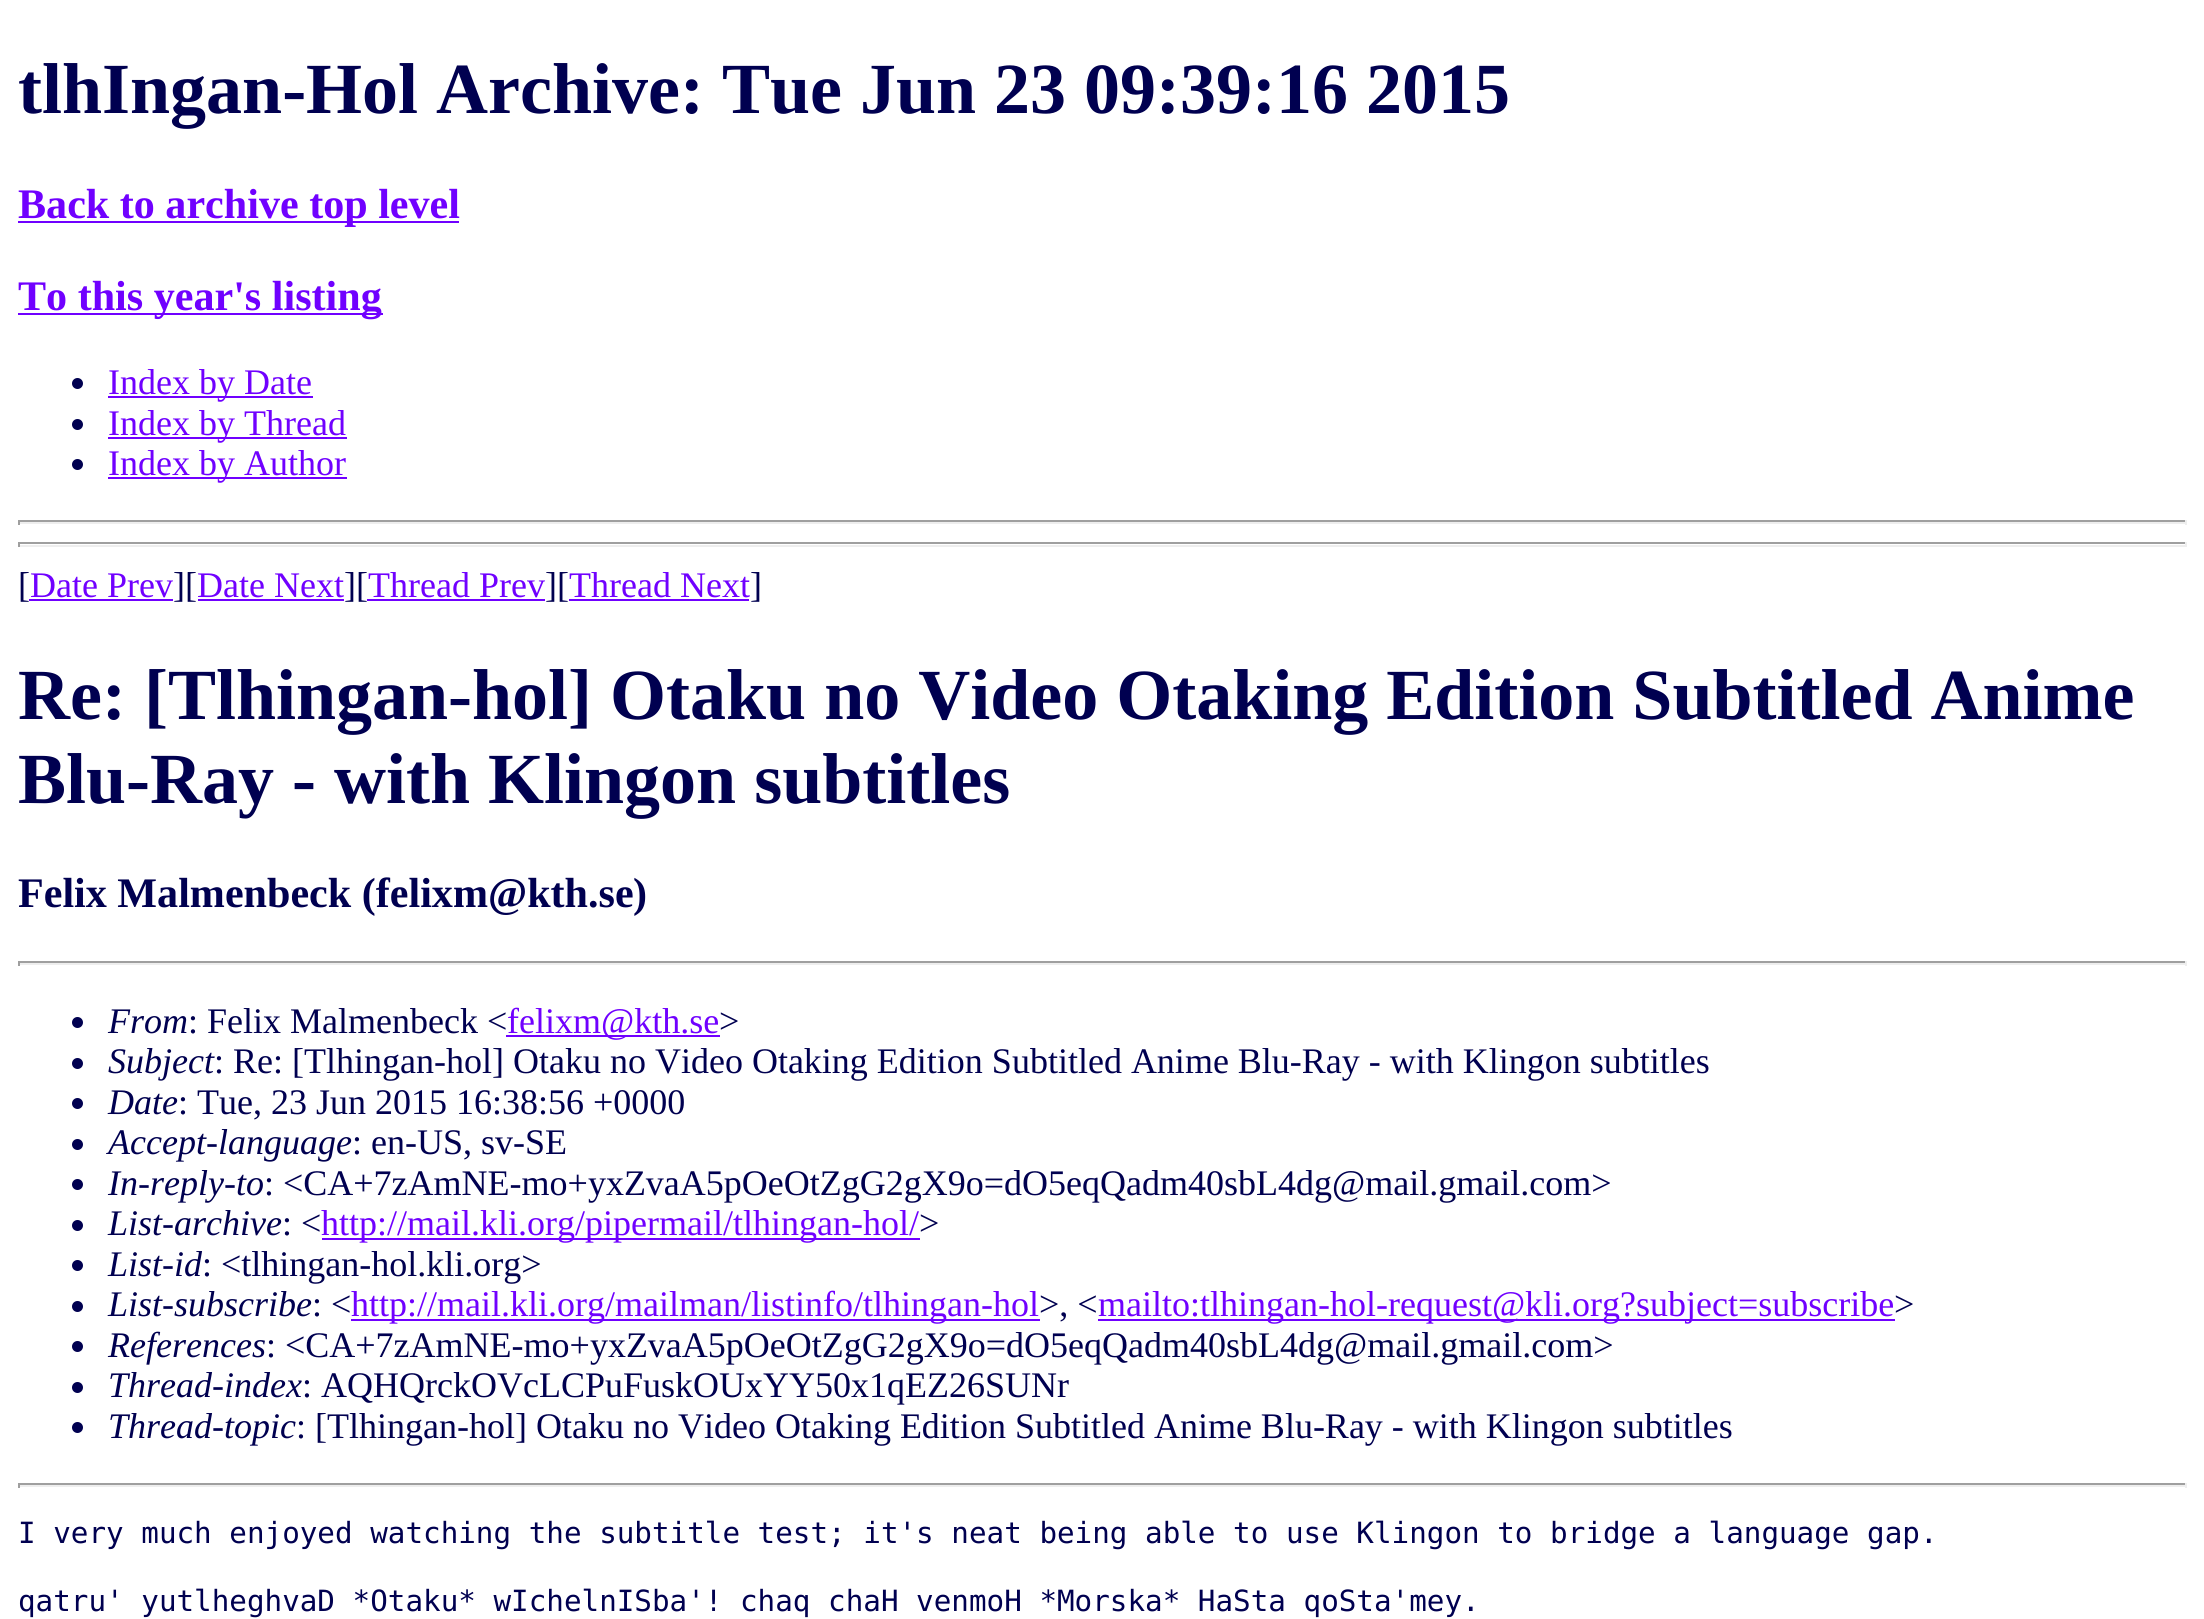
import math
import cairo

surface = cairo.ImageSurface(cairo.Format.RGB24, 2204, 1619)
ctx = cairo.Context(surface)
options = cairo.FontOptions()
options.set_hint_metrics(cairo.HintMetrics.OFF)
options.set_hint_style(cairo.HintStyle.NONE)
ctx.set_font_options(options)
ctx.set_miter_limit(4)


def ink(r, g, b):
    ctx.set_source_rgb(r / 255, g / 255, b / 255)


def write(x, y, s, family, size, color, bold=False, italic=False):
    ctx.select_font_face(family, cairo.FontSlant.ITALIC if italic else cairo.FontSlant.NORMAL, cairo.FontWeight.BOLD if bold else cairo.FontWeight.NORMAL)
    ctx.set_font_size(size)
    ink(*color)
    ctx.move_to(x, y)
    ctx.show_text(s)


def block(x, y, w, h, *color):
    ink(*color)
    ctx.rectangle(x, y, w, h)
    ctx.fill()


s1 = dict(family="Liberation Serif", size=72, color=(0, 0, 80), bold=True)
s2 = dict(family="Liberation Serif", size=42.1, color=(112, 0, 255), bold=True)
s3 = dict(family="Liberation Serif", size=36, color=(112, 0, 255))
s4 = dict(family="Liberation Serif", size=36, color=(0, 0, 80))
s5 = dict(family="Liberation Serif", size=42.1, color=(0, 0, 80), bold=True)
s6 = dict(family="Liberation Serif", size=36, color=(0, 0, 80), italic=True)
s7 = dict(family="DejaVu Sans Mono", size=29.25, color=(0, 0, 80))

ink(255, 255, 255)
ctx.paint()
write(18, 113, "tlhIngan-Hol Archive: Tue Jun 23 09:39:16 2015", **s1)
block(18, 221, 441, 2, 112, 0, 255)
write(18, 218, "Back to archive top level", **s2)
block(18, 313, 365, 2, 112, 0, 255)
write(18, 310, "To this year's listing", **s2)
ink(0, 0, 80)
ctx.new_path()
ctx.arc(77.5, 383.5, 5.5, 0, 2 * math.pi)
ctx.fill()
block(108, 396, 205, 2, 112, 0, 255)
write(108, 394, "Index by Date", **s3)
ink(0, 0, 80)
ctx.new_path()
ctx.arc(77.5, 424.5, 5.5, 0, 2 * math.pi)
ctx.fill()
block(108, 437, 239, 2, 112, 0, 255)
write(108, 435, "Index by Thread", **s3)
ink(0, 0, 80)
ctx.new_path()
ctx.arc(77.5, 464.5, 5.5, 0, 2 * math.pi)
ctx.fill()
block(108, 477, 239, 2, 112, 0, 255)
write(108, 475, "Index by Author", **s3)
block(18, 520, 2169, 2, 159, 159, 159)
block(2185, 520, 2, 5, 238, 238, 238)
block(18, 522, 2169, 2, 238, 238, 238)
block(18, 520, 2, 5, 159, 159, 159)
block(18, 542, 2169, 2, 159, 159, 159)
block(2185, 542, 2, 5, 238, 238, 238)
block(18, 545, 2169, 2, 238, 238, 238)
block(18, 542, 2, 5, 159, 159, 159)
write(18, 597, "[", **s4)
write(30, 597, "Date Prev", **s3)
block(29, 599, 144, 2, 112, 0, 255)
write(173, 597, "][", **s4)
write(197, 597, "Date Next", **s3)
block(198, 599, 146, 2, 112, 0, 255)
write(344, 597, "][", **s4)
write(368, 597, "Thread Prev", **s3)
block(367, 599, 178, 2, 112, 0, 255)
write(545, 597, "][", **s4)
write(569, 597, "Thread Next", **s3)
block(569, 599, 180, 2, 112, 0, 255)
write(750, 597, "]", **s4)
write(18, 719, "Re: [Tlhingan-hol] Otaku no Video Otaking Edition Subtitled Anime", **s1)
write(18, 803, "Blu-Ray - with Klingon subtitles", **s1)
write(18, 907, "Felix Malmenbeck (felixm@kth.se", **s5)
write(633, 907, ")", **s5)
block(18, 961, 2169, 2, 159, 159, 159)
block(2185, 961, 2, 5, 238, 238, 238)
block(18, 963, 2169, 2, 238, 238, 238)
block(18, 961, 2, 5, 159, 159, 159)
ink(0, 0, 80)
ctx.new_path()
ctx.arc(77.5, 1022.5, 5.5, 0, 2 * math.pi)
ctx.fill()
write(108, 1033, "From", **s6)
write(188, 1033, ": Felix Malmenbeck <", **s4)
block(506, 1035, 214, 2, 112, 0, 255)
write(507, 1033, "felixm@kth.se", **s3)
write(719, 1033, ">", **s4)
ctx.new_path()
ctx.arc(77.5, 1063.5, 5.5, 0, 2 * math.pi)
ctx.fill()
write(108, 1073, "Subject", **s6)
write(214, 1073, ": Re: [Tlhingan-hol] Otaku no Video Otaking Edition Subtitled Anime Blu-Ray - with Klingon subtitles", **s4)
ctx.new_path()
ctx.arc(77.5, 1103.5, 5.5, 0, 2 * math.pi)
ctx.fill()
write(108, 1114, "Date", **s6)
write(178, 1114, ": Tue, 23 Jun 2015 16:38:56 +0000", **s4)
ctx.new_path()
ctx.arc(77.5, 1144.5, 5.5, 0, 2 * math.pi)
ctx.fill()
write(108, 1154, "Accept-language", **s6)
write(352, 1154, ": en-US, sv-SE", **s4)
ctx.new_path()
ctx.arc(77.5, 1184.5, 5.5, 0, 2 * math.pi)
ctx.fill()
write(108, 1195, "In-reply-to", **s6)
write(264, 1195, ": <CA+7zAmNE-mo+yxZvaA5pOeOtZgG2gX9o=dO5eqQadm40sbL4dg@mail.gmail.com>", **s4)
ctx.new_path()
ctx.arc(77.5, 1225.5, 5.5, 0, 2 * math.pi)
ctx.fill()
write(108, 1235, "List-archive", **s6)
write(282, 1235, ": <", **s4)
block(322, 1238, 598, 2, 112, 0, 255)
write(321, 1235, "http://mail.kli.org/pipermail/tlhingan-hol/", **s3)
write(919, 1235, ">", **s4)
ctx.new_path()
ctx.arc(77.5, 1265.5, 5.5, 0, 2 * math.pi)
ctx.fill()
write(108, 1276, "List-id", **s6)
write(202, 1276, ": <tlhingan-hol.kli.org>", **s4)
ctx.new_path()
ctx.arc(77.5, 1306.5, 5.5, 0, 2 * math.pi)
ctx.fill()
write(108, 1316, "List-subscribe", **s6)
write(312, 1316, ": <", **s4)
block(351, 1319, 689, 2, 112, 0, 255)
write(351, 1316, "http://mail.kli.org/mailman/listinfo/tlhingan-hol", **s3)
write(1039, 1316, ">, <", **s4)
block(1098, 1319, 797, 2, 112, 0, 255)
write(1098, 1316, "mailto:tlhingan-hol-request@kli.org?subject=subscribe", **s3)
write(1894, 1316, ">", **s4)
ctx.new_path()
ctx.arc(77.5, 1346.5, 5.5, 0, 2 * math.pi)
ctx.fill()
write(108, 1357, "References", **s6)
write(266, 1357, ": <CA+7zAmNE-mo+yxZvaA5pOeOtZgG2gX9o=dO5eqQadm40sbL4dg@mail.gmail.com>", **s4)
ctx.new_path()
ctx.arc(77.5, 1387.5, 5.5, 0, 2 * math.pi)
ctx.fill()
write(108, 1397, "Thread-index", **s6)
write(302, 1397, ": AQHQrckOVcLCPuFuskOUxYY50x1qEZ26SUNr", **s4)
ctx.new_path()
ctx.arc(77.5, 1427.5, 5.5, 0, 2 * math.pi)
ctx.fill()
write(108, 1438, "Thread-topic", **s6)
write(296, 1438, ": [Tlhingan-hol] Otaku no Video Otaking Edition Subtitled Anime Blu-Ray - with Klingon subtitles", **s4)
block(18, 1483, 2169, 2, 159, 159, 159)
block(2185, 1483, 2, 5, 238, 238, 238)
block(18, 1485, 2169, 2, 238, 238, 238)
block(18, 1483, 2, 5, 159, 159, 159)
write(18, 1543, "I very much enjoyed watching the subtitle test; it's neat being able to use Klingon to bridge a language gap.", **s7)
write(18, 1611, "qatru' yutlheghvaD *Otaku* wIchelnISba'! chaq chaH venmoH *Morska* HaSta qoSta'mey.", **s7)
surface.write_to_png("screenshot.png")
